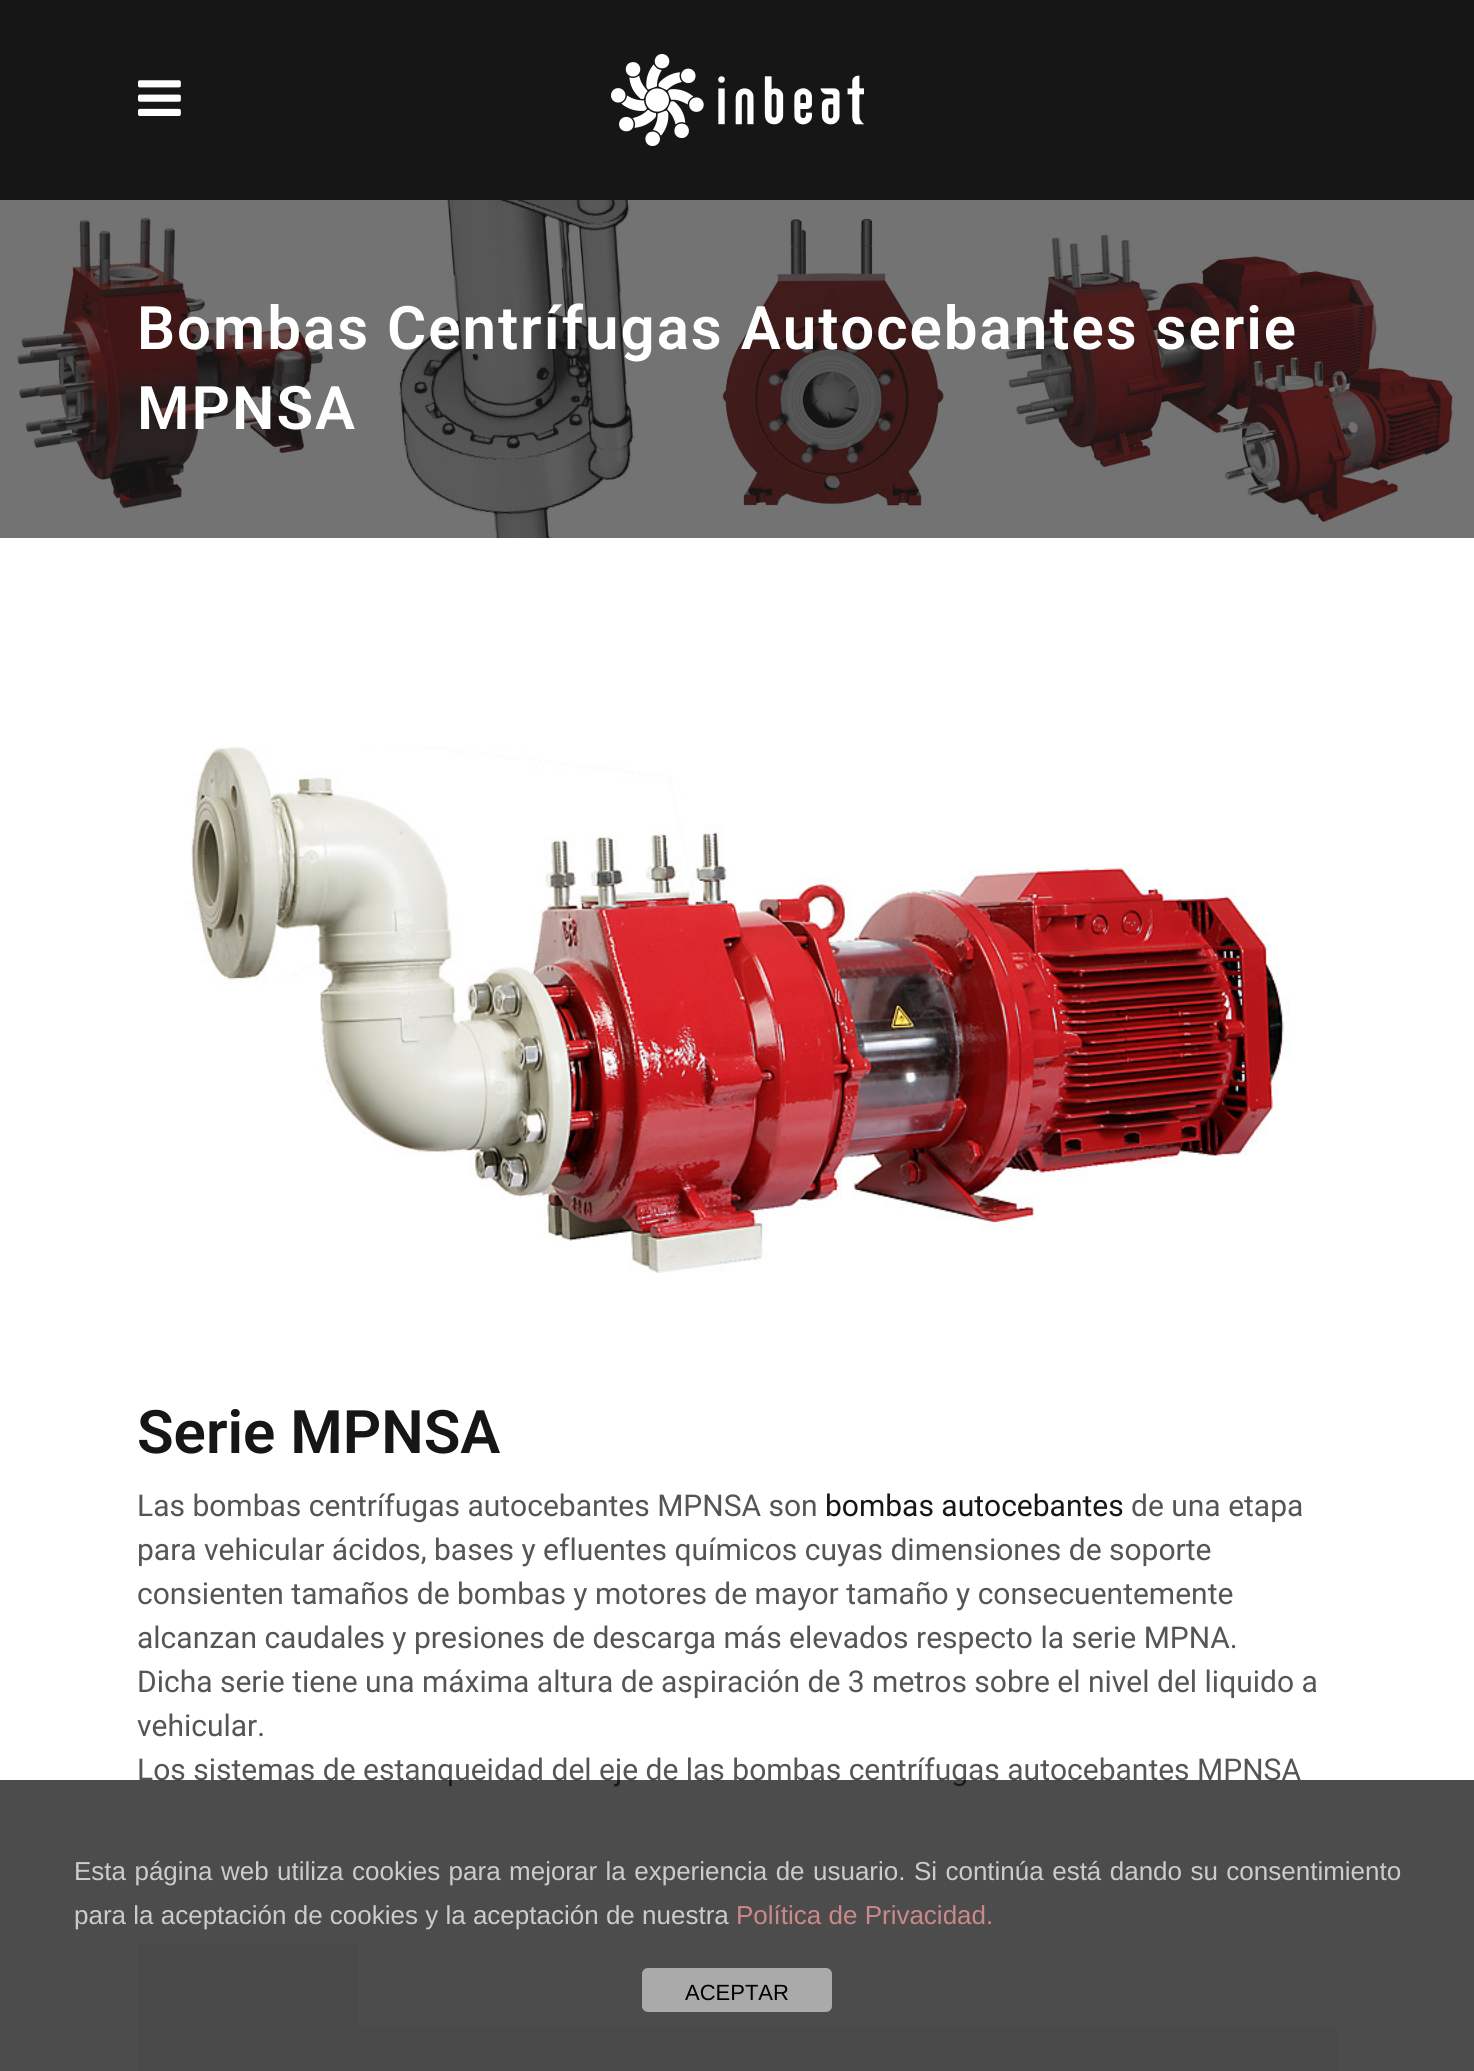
import math
import cairo

surface = cairo.ImageSurface(cairo.Format.RGB24, 1474, 2071)
ctx = cairo.Context(surface)
options = cairo.FontOptions()
options.set_hint_metrics(cairo.HintMetrics.OFF)
options.set_hint_style(cairo.HintStyle.NONE)
ctx.set_font_options(options)
ctx.set_miter_limit(4)


def ink(r, g, b):
    ctx.set_source_rgb(r / 255, g / 255, b / 255)


def write(x, y, s, family, size, color, bold=False, italic=False):
    ctx.select_font_face(family, cairo.FontSlant.ITALIC if italic else cairo.FontSlant.NORMAL, cairo.FontWeight.BOLD if bold else cairo.FontWeight.NORMAL)
    ctx.set_font_size(size)
    ink(*color)
    ctx.move_to(x, y)
    ctx.show_text(s)


def write_spaced(x, y, s, letter, word):
    ctx.move_to(x, y)
    for ch in s:
        ctx.show_text(ch)
        ctx.rel_move_to(letter + word * (ch == ' '), 0)


def block(x, y, w, h, *color):
    ink(*color)
    ctx.rectangle(x, y, w, h)
    ctx.fill()


def round_path(x, y, w, h, r):
    ctx.new_sub_path()
    for i, (u, v) in enumerate([(x + w - r, y + h - r), (x + r, y + h - r), (x + r, y + r), (x + w - r, y + r)]):
        ctx.arc(u, v, r, i * math.pi / 2, (i + 1) * math.pi / 2)
    ctx.close_path()


def paste(path, x, y, w, h):
    ctx.save()
    ctx.set_source_surface(cairo.ImageSurface.create_from_png(path), x, y)
    ctx.rectangle(x, y, w, h)
    ctx.fill()
    ctx.restore()


s1 = dict(family="Roboto SemiBold", size=60, color=(22, 22, 22))
s2 = dict(family="Roboto", size=30, color=(85, 85, 85))
s3 = dict(family="Roboto", size=30, color=(22, 22, 22))
s4 = dict(family="Liberation Sans", size=26, color=(204, 204, 204))
s5 = dict(family="Liberation Sans", size=26, color=(204, 136, 136))
s6 = dict(family="Liberation Sans", size=22, color=(0, 0, 0))

ink(255, 255, 255)
ctx.paint()
block(0, 0, 1474, 200, 22, 22, 22)
paste("pic1.png", 138, 80, 43, 36)
paste("pic2.png", 611, 54, 253, 92)
paste("pic3.png", 0, 200, 1474, 338)
ctx.select_font_face("Roboto SemiBold")
ctx.set_font_size(60)
ink(255, 255, 255)
write_spaced(137, 349, "Bombas Centrífugas Autocebantes serie", 2, 0)
write_spaced(137, 429, "MPNSA", 2, 0)
paste("pic4.png", 185, 746, 1105, 527)
write(137, 1453, "Serie MPNSA", **s1)
write(137, 1516, "Las bombas centrífugas autocebantes MPNSA son", **s2)
write(825, 1516, "bombas autocebantes", **s3)
write(1131, 1516, "de una etapa", **s2)
write(137, 1560, "para vehicular ácidos, bases y efluentes químicos cuyas dimensiones de soporte", **s2)
write(137, 1604, "consienten tamaños de bombas y motores de mayor tamaño y consecuentemente", **s2)
write(137, 1648, "alcanzan caudales y presiones de descarga más elevados respecto la serie MPNA.", **s2)
write(137, 1692, "Dicha serie tiene una máxima altura de aspiración de 3 metros sobre el nivel del liquido a", **s2)
write(137, 1736, "vehicular.", **s2)
write(137, 1780, "Los sistemas de estanqueidad del eje de las bombas centrífugas autocebantes MPNSA", **s2)
block(138, 1944, 220, 82, 247, 247, 247)
block(138, 2026, 1200, 45, 247, 247, 247)
ctx.set_source_rgba(0, 0, 0, 0.7)
ctx.rectangle(0, 1780, 1474, 291)
ctx.fill()
ctx.select_font_face("Liberation Sans")
ctx.set_font_size(26)
ink(204, 204, 204)
write_spaced(74, 1880, "Esta página web utiliza cookies para mejorar la experiencia de usuario. Si continúa está dando su consentimiento", 0, 1.2)
write(74, 1924, "para la aceptación de cookies y la aceptación de nuestra", **s4)
write(736, 1924, "Política de Privacidad.", **s5)
ink(170, 170, 170)
round_path(642, 1968, 190, 44, 6)
ctx.fill()
write(685, 2000, "ACEPTAR", **s6)
surface.write_to_png("screenshot.png")
